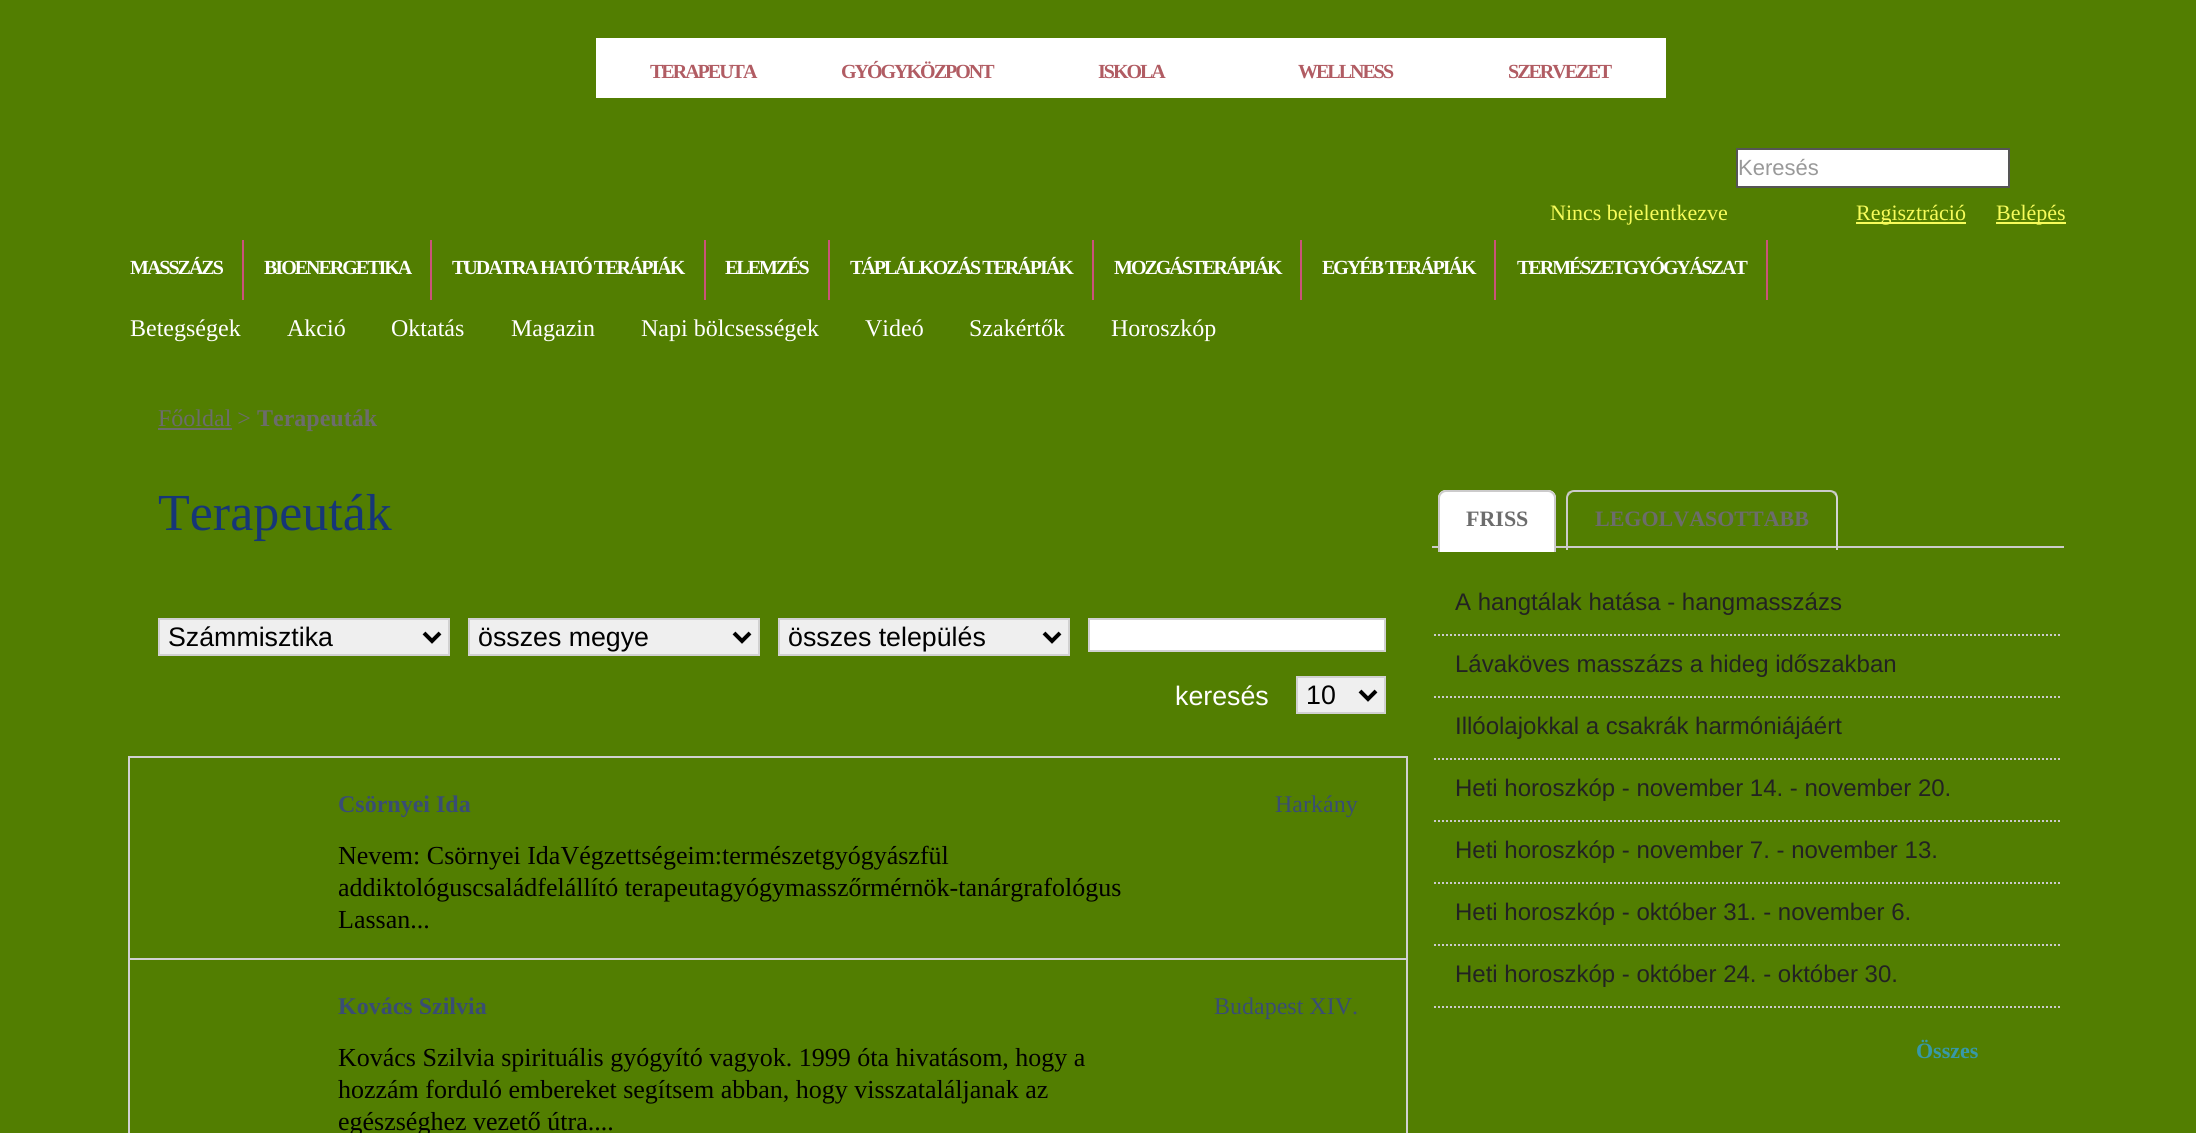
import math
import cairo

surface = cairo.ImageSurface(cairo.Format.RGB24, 2196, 1133)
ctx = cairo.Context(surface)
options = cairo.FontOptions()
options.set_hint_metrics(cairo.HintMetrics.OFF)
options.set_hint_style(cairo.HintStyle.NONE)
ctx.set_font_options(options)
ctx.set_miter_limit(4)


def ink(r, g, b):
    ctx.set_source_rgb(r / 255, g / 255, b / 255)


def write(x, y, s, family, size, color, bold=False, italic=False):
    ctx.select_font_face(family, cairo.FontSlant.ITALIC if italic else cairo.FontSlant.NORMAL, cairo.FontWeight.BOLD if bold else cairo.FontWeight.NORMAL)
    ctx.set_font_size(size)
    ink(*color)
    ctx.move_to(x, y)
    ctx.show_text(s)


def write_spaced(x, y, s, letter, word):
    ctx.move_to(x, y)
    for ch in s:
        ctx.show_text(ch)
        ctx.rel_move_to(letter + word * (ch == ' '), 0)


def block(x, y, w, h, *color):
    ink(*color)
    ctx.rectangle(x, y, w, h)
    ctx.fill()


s1 = dict(family="Liberation Sans", size=22, color=(153, 153, 153))
s2 = dict(family="Liberation Serif", size=22, color=(247, 252, 90))
s3 = dict(family="Liberation Serif", size=24, color=(255, 255, 255))
s4 = dict(family="Liberation Serif", size=24, color=(108, 108, 108))
s5 = dict(family="Liberation Serif", size=24, color=(108, 108, 108), bold=True)
s6 = dict(family="Liberation Serif", size=52, color=(22, 54, 119))
s7 = dict(family="Liberation Sans", size=26.75, color=(0, 0, 0))
s8 = dict(family="Liberation Sans", size=26.75, color=(255, 255, 255))
s9 = dict(family="Liberation Serif", size=24, color=(57, 77, 116), bold=True)
s10 = dict(family="Liberation Serif", size=24, color=(57, 77, 116))
s11 = dict(family="Liberation Serif", size=26, color=(0, 0, 0))
s12 = dict(family="Liberation Serif", size=22, color=(108, 108, 108), bold=True)
s13 = dict(family="Liberation Sans", size=24, color=(34, 34, 34))
s14 = dict(family="Liberation Serif", size=22, color=(55, 153, 169), bold=True)

ink(82, 126, 1)
ctx.paint()
block(596, 38, 1070, 60, 255, 255, 255)
ctx.select_font_face("Liberation Serif", cairo.FontSlant.NORMAL, cairo.FontWeight.BOLD)
ctx.set_font_size(20)
ink(177, 92, 99)
write_spaced(650, 78, "TERAPEUTA", -2, 0)
write_spaced(841, 78, "GYÓGYKÖZPONT", -2, 0)
write_spaced(1098, 78, "ISKOLA", -2, 0)
write_spaced(1298, 78, "WELLNESS", -2, 0)
write_spaced(1508, 78, "SZERVEZET", -2, 0)
ink(255, 255, 255)
ctx.rectangle(1737, 149, 272, 38)
ctx.fill_preserve()
ink(85, 85, 85)
ctx.stroke()
write(1738, 175, "Keresés", **s1)
write(1550, 220, "Nincs bejelentkezve", **s2)
block(1856, 222, 110, 2, 247, 252, 90)
write(1856, 220, "Regisztráció", **s2)
block(1996, 222, 70, 2, 247, 252, 90)
write(1996, 220, "Belépés", **s2)
block(242, 240, 2, 60, 202, 83, 122)
ctx.select_font_face("Liberation Serif", cairo.FontSlant.NORMAL, cairo.FontWeight.BOLD)
ctx.set_font_size(20)
ink(255, 255, 255)
write_spaced(130, 274, "MASSZÁZS", -2, 0)
block(430, 240, 2, 60, 202, 83, 122)
ink(255, 255, 255)
write_spaced(264, 274, "BIOENERGETIKA", -2, 0)
block(704, 240, 2, 60, 202, 83, 122)
ink(255, 255, 255)
write_spaced(452, 274, "TUDATRA HATÓ TERÁPIÁK", -2, 0)
block(828, 240, 2, 60, 202, 83, 122)
ink(255, 255, 255)
write_spaced(725, 274, "ELEMZÉS", -2, 0)
block(1092, 240, 2, 60, 202, 83, 122)
ink(255, 255, 255)
write_spaced(850, 274, "TÁPLÁLKOZÁS TERÁPIÁK", -2, 0)
block(1300, 240, 2, 60, 202, 83, 122)
ink(255, 255, 255)
write_spaced(1114, 274, "MOZGÁSTERÁPIÁK", -2, 0)
block(1494, 240, 2, 60, 202, 83, 122)
ink(255, 255, 255)
write_spaced(1322, 274, "EGYÉB TERÁPIÁK", -2, 0)
block(1766, 240, 2, 60, 202, 83, 122)
ink(255, 255, 255)
write_spaced(1517, 274, "TERMÉSZETGYÓGYÁSZAT", -2, 0)
write(130, 336, "Betegségek", **s3)
write(287, 336, "Akció", **s3)
write(391, 336, "Oktatás", **s3)
write(511, 336, "Magazin", **s3)
write(641, 336, "Napi bölcsességek", **s3)
write(865, 336, "Videó", **s3)
write(969, 336, "Szakértők", **s3)
write(1111, 336, "Horoszkóp", **s3)
write(158, 426, "Főoldal >", **s4)
block(158, 428, 74, 2, 108, 108, 108)
write(257, 426, "Terapeuták", **s5)
write(158, 530, "Terapeuták", **s6)
ink(239, 239, 239)
ctx.rectangle(159, 619, 290, 36)
ctx.fill_preserve()
ink(209, 209, 209)
ctx.stroke()
ctx.new_path()
ctx.move_to(424, 633)
ctx.line_to(432, 641)
ctx.line_to(440, 633)
ink(0, 0, 0)
ctx.set_line_width(4)
ctx.stroke()
write(168, 646, "Számmisztika", **s7)
ink(239, 239, 239)
ctx.rectangle(469, 619, 290, 36)
ctx.fill_preserve()
ink(209, 209, 209)
ctx.set_line_width(2)
ctx.stroke()
ctx.new_path()
ctx.move_to(734, 633)
ctx.line_to(742, 641)
ctx.line_to(750, 633)
ink(0, 0, 0)
ctx.set_line_width(4)
ctx.stroke()
write(478, 646, "összes megye", **s7)
ink(239, 239, 239)
ctx.rectangle(779, 619, 290, 36)
ctx.fill_preserve()
ink(209, 209, 209)
ctx.set_line_width(2)
ctx.stroke()
ctx.new_path()
ctx.move_to(1044, 633)
ctx.line_to(1052, 641)
ctx.line_to(1060, 633)
ink(0, 0, 0)
ctx.set_line_width(4)
ctx.stroke()
write(788, 646, "összes település", **s7)
ink(255, 255, 255)
ctx.rectangle(1089, 619, 296, 32)
ctx.fill_preserve()
ink(209, 209, 209)
ctx.set_line_width(2)
ctx.stroke()
write(1175, 705, "keresés", **s8)
ink(239, 239, 239)
ctx.rectangle(1297, 677, 88, 36)
ctx.fill_preserve()
ink(209, 209, 209)
ctx.stroke()
ctx.new_path()
ctx.move_to(1360, 691)
ctx.line_to(1368, 699)
ctx.line_to(1376, 691)
ink(0, 0, 0)
ctx.set_line_width(4)
ctx.stroke()
write(1306, 704, "10", **s7)
ctx.rectangle(129, 757, 1278, 202)
ink(209, 209, 209)
ctx.set_line_width(2)
ctx.stroke()
write(338, 812, "Csörnyei Ida", **s9)
write(1275, 812, "Harkány", **s10)
write(338, 864, "Nevem: Csörnyei IdaVégzettségeim:természetgyógyászfül", **s11)
write(338, 896, "addiktológuscsaládfelállító terapeutagyógymasszőrmérnök-tanárgrafológus", **s11)
write(338, 928, "Lassan...", **s11)
ctx.rectangle(129, 959, 1278, 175)
ink(209, 209, 209)
ctx.stroke()
write(338, 1014, "Kovács Szilvia", **s9)
write(1214, 1014, "Budapest XIV.", **s10)
write(338, 1066, "Kovács Szilvia spirituális gyógyító vagyok. 1999 óta hivatásom, hogy a", **s11)
write(338, 1098, "hozzám forduló embereket segítsem abban, hogy visszataláljanak az", **s11)
write(338, 1130, "egészséghez vezető útra....", **s11)
block(1432, 546, 632, 2, 204, 203, 203)
ink(255, 255, 255)
ctx.new_path()
ctx.move_to(1446, 490)
ctx.line_to(1548, 490)
ctx.curve_to(1552.5, 490, 1556, 493.5, 1556, 498)
ctx.line_to(1556, 552)
ctx.line_to(1438, 552)
ctx.line_to(1438, 498)
ctx.curve_to(1438, 493.5, 1441.5, 490, 1446, 490)
ctx.close_path()
ctx.fill()
ink(204, 203, 203)
ctx.set_fill_rule(cairo.FillRule.EVEN_ODD)
ctx.new_path()
ctx.move_to(1446, 490)
ctx.line_to(1548, 490)
ctx.curve_to(1552, 490, 1556, 494, 1556, 498)
ctx.line_to(1556, 552)
ctx.line_to(1438, 552)
ctx.line_to(1438, 498)
ctx.curve_to(1438, 494, 1442, 490, 1446, 490)
ctx.close_path()
ctx.move_to(1446, 492)
ctx.line_to(1548, 492)
ctx.curve_to(1551, 492, 1554, 495, 1554, 498)
ctx.line_to(1554, 552)
ctx.line_to(1440, 552)
ctx.line_to(1440, 498)
ctx.curve_to(1440, 495, 1443, 492, 1446, 492)
ctx.close_path()
ctx.fill()
write(1466, 526, "FRISS", **s12)
ink(204, 203, 203)
ctx.set_fill_rule(cairo.FillRule.WINDING)
ctx.new_path()
ctx.move_to(1574, 490)
ctx.curve_to(1572, 490, 1570, 491, 1568, 492)
ctx.line_to(1570, 494)
ctx.curve_to(1571, 493, 1572, 492, 1574, 492)
ctx.line_to(1830, 492)
ctx.curve_to(1832, 492, 1833, 493, 1834, 494)
ctx.line_to(1836, 492)
ctx.curve_to(1834, 491, 1832, 490, 1830, 490)
ctx.close_path()
ctx.fill()
ink(211, 211, 211)
ctx.new_path()
ctx.move_to(1836, 550)
ctx.line_to(1838, 550)
ctx.line_to(1838, 498)
ctx.curve_to(1838, 496, 1837, 494, 1836, 492)
ctx.line_to(1834, 494)
ctx.curve_to(1835, 495, 1836, 496, 1836, 498)
ctx.close_path()
ctx.fill()
ink(204, 203, 203)
ctx.new_path()
ctx.move_to(1566, 550)
ctx.line_to(1568, 550)
ctx.line_to(1568, 498)
ctx.curve_to(1568, 496, 1569, 495, 1570, 494)
ctx.line_to(1568, 492)
ctx.curve_to(1567, 494, 1566, 496, 1566, 498)
ctx.close_path()
ctx.fill()
write(1595, 526, "LEGOLVASOTTABB", **s12)
ctx.new_path()
ctx.move_to(1434, 635)
ctx.line_to(2060, 635)
ink(203, 203, 203)
ctx.set_dash([2, 2])
ctx.stroke()
write(1455, 610, "A hangtálak hatása - hangmasszázs", **s13)
ctx.new_path()
ctx.move_to(1434, 697)
ctx.line_to(2060, 697)
ink(203, 203, 203)
ctx.stroke()
write(1455, 672, "Lávaköves masszázs a hideg időszakban", **s13)
ctx.new_path()
ctx.move_to(1434, 759)
ctx.line_to(2060, 759)
ink(203, 203, 203)
ctx.stroke()
write(1455, 734, "Illóolajokkal a csakrák harmóniájáért", **s13)
ctx.new_path()
ctx.move_to(1434, 821)
ctx.line_to(2060, 821)
ink(203, 203, 203)
ctx.stroke()
write(1455, 796, "Heti horoszkóp - november 14. - november 20.", **s13)
ctx.new_path()
ctx.move_to(1434, 883)
ctx.line_to(2060, 883)
ink(203, 203, 203)
ctx.stroke()
write(1455, 858, "Heti horoszkóp - november 7. - november 13.", **s13)
ctx.new_path()
ctx.move_to(1434, 945)
ctx.line_to(2060, 945)
ink(203, 203, 203)
ctx.stroke()
write(1455, 920, "Heti horoszkóp - október 31. - november 6.", **s13)
ctx.new_path()
ctx.move_to(1434, 1007)
ctx.line_to(2060, 1007)
ink(203, 203, 203)
ctx.stroke()
write(1455, 982, "Heti horoszkóp - október 24. - október 30.", **s13)
write(1916, 1058, "Összes", **s14)
surface.write_to_png("screenshot.png")
